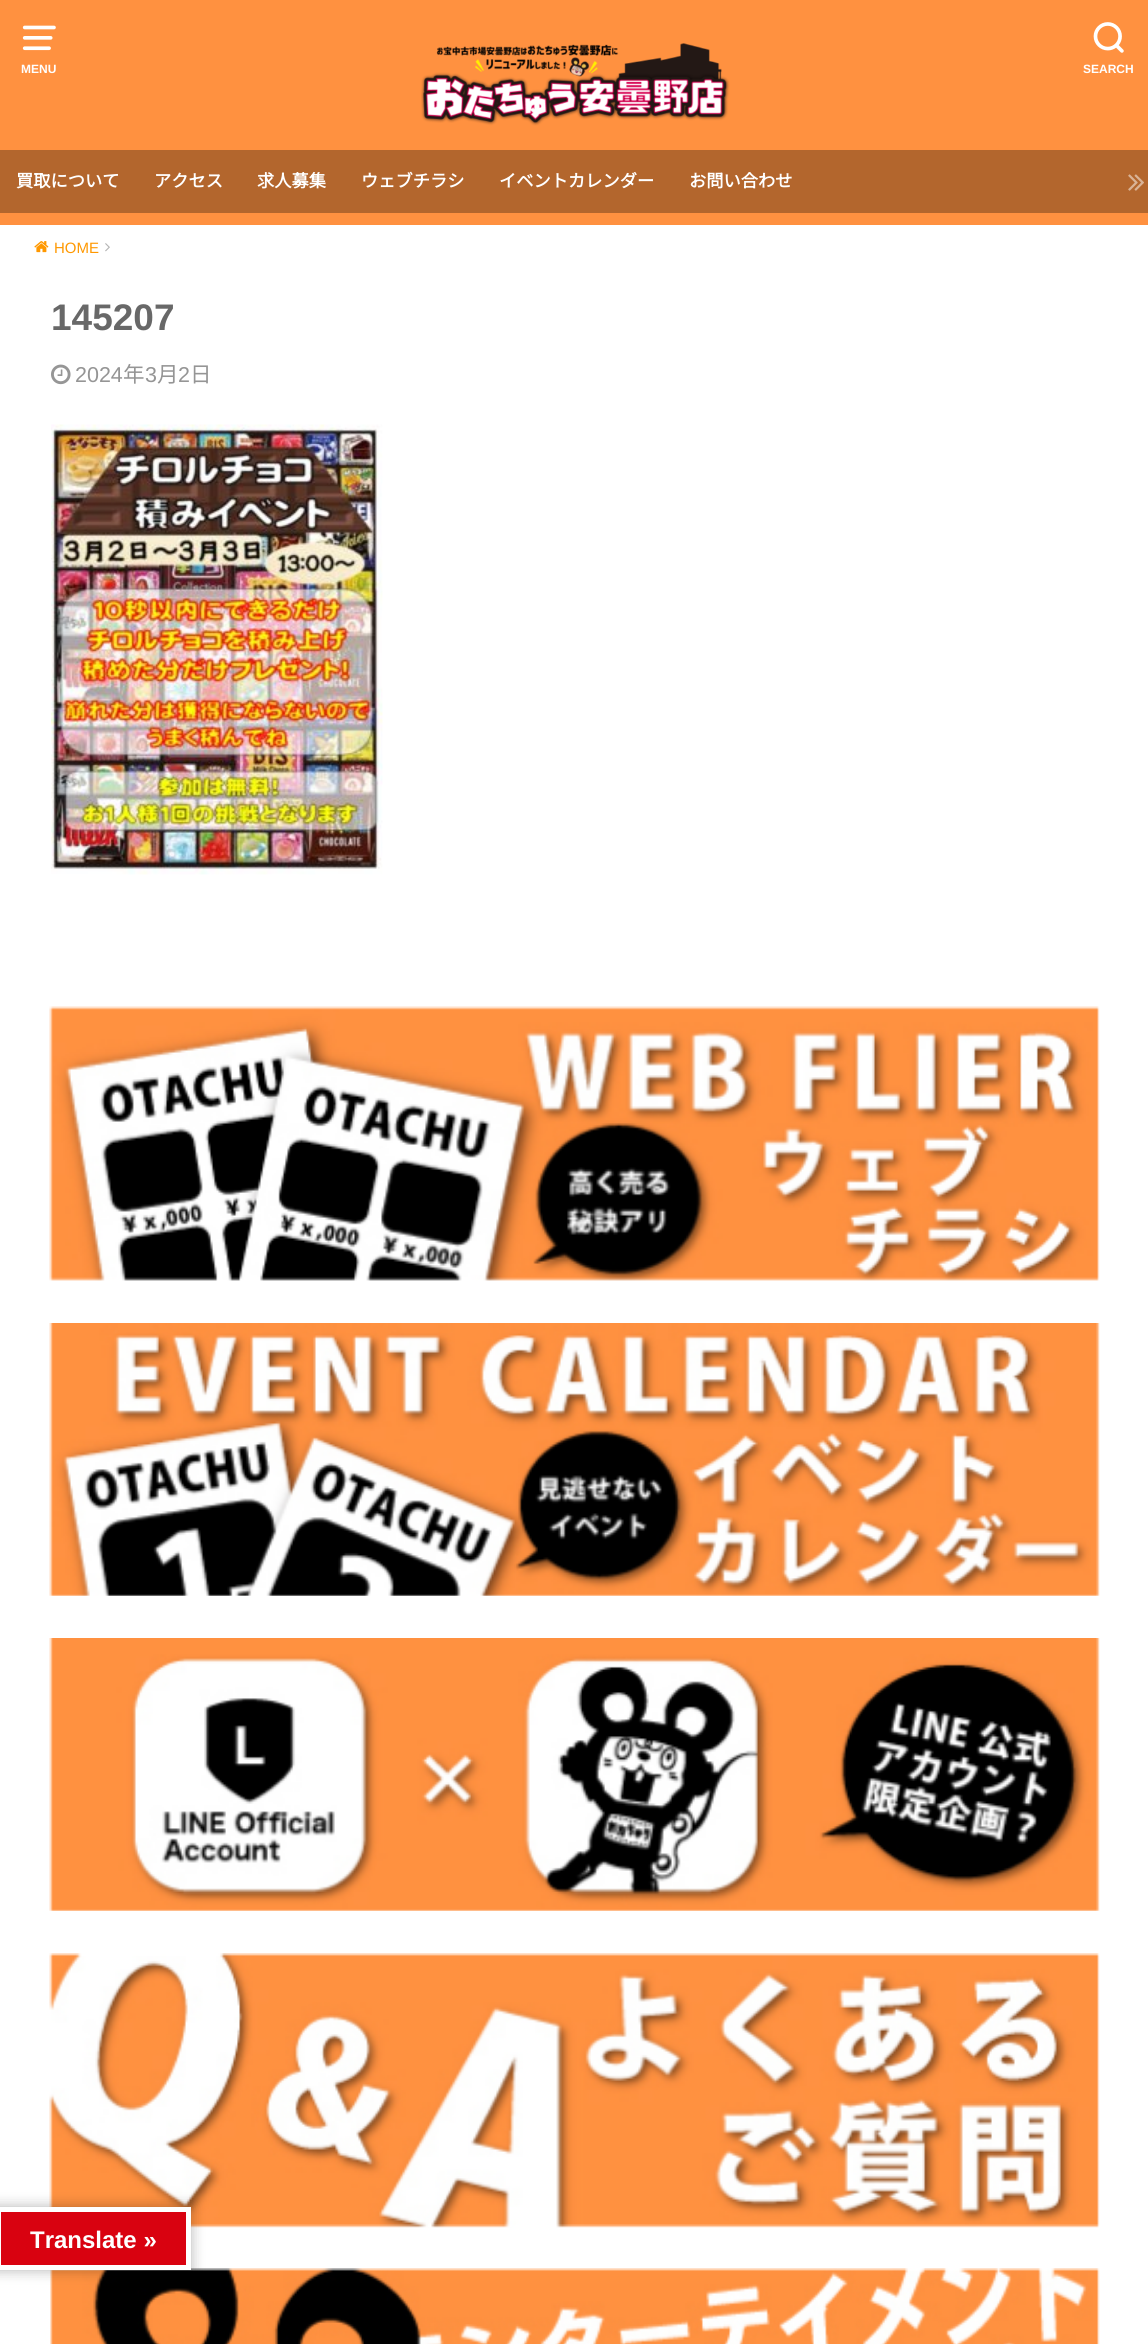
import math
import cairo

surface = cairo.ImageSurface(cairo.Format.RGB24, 1148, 2344)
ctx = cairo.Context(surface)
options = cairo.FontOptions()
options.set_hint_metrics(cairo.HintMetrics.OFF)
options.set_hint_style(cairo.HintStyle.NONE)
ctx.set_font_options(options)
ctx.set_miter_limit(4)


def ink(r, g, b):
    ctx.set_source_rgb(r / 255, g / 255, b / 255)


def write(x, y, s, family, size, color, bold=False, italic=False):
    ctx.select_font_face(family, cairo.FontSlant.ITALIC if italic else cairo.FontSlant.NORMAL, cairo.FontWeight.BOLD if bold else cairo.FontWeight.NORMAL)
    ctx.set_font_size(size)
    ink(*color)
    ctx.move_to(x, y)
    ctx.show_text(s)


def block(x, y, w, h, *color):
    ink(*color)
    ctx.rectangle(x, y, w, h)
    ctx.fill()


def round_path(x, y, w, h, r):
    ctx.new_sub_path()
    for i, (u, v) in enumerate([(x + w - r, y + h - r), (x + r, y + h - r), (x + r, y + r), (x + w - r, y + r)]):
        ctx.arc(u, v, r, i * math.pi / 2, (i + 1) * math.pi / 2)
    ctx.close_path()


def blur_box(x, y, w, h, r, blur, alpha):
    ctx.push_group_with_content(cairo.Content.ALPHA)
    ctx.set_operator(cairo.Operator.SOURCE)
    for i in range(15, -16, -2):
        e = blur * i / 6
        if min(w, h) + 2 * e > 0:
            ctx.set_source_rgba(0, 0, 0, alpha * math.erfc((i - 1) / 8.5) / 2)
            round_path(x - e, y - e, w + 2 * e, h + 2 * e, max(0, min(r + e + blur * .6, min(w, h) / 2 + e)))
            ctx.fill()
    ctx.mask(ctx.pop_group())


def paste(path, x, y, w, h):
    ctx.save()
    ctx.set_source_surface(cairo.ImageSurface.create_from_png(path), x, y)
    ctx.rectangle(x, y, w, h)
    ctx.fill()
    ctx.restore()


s1 = dict(family="Liberation Sans", size=12, color=(255, 255, 255), bold=True)
s2 = dict(family="Noto Sans JP", size=17.25, color=(255, 255, 255), bold=True)
s3 = dict(family="Liberation Sans", size=15, color=(255, 152, 0))
s4 = dict(family="Liberation Sans", size=37, color=(104, 104, 104), bold=True)
s5 = dict(family="Liberation Sans", size=21.5, color=(149, 149, 149))
s6 = dict(family="Noto Sans JP Thin", size=21.5, color=(149, 149, 149))
s7 = dict(family="Liberation Sans", size=24, color=(255, 255, 255), bold=True)

ink(255, 255, 255)
ctx.paint()
block(0, 0, 1148, 225, 255, 145, 64)
paste("pic1.png", 22, 25, 34, 26)
write(21, 73, "MENU", **s1)
paste("pic2.png", 421, 43, 309, 83)
paste("pic3.png", 1093, 22, 31, 31)
write(1083, 73, "SEARCH", **s1)
block(0, 150, 1148, 63, 179, 102, 45)
write(16, 187, "買取について", **s2)
write(154, 187, "アクセス", **s2)
write(257, 187, "求人募集", **s2)
write(361, 187, "ウェブチラシ", **s2)
write(499, 187, "イベントカレンダー", **s2)
write(689, 187, "お問い合わせ", **s2)
paste("pic4.png", 1128, 174, 16, 17)
paste("pic5.png", 34, 241, 15, 12)
write(54, 253, "HOME", **s3)
paste("pic6.png", 105, 243, 5, 9)
write(51, 330, "145207", **s4)
paste("pic7.png", 51, 364, 20, 21)
write(75, 382, "2024", **s5)
write(123, 382, "年", **s6)
write(145, 382, "3", **s5)
write(157, 382, "月", **s6)
write(178, 382, "2", **s5)
write(190, 382, "日", **s6)
paste("pic8.png", 51, 424, 332, 451)
paste("pic9.png", 49, 1006, 1051, 275)
paste("pic10.png", 49, 1323, 1051, 273)
paste("pic11.png", 49, 1638, 1051, 273)
paste("pic12.png", 49, 1953, 1051, 275)
paste("pic13.png", 50, 2268, 1050, 76)
ink(0, 0, 0)
blur_box(-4, 2207, 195, 63, 0, 7, 0.3)
ink(217, 2, 16)
ctx.rectangle(-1.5, 2209.5, 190, 58)
ctx.fill_preserve()
ink(255, 255, 255)
ctx.set_line_width(5)
ctx.stroke()
write(30, 2248, "Translate »", **s7)
surface.write_to_png("screenshot.png")
